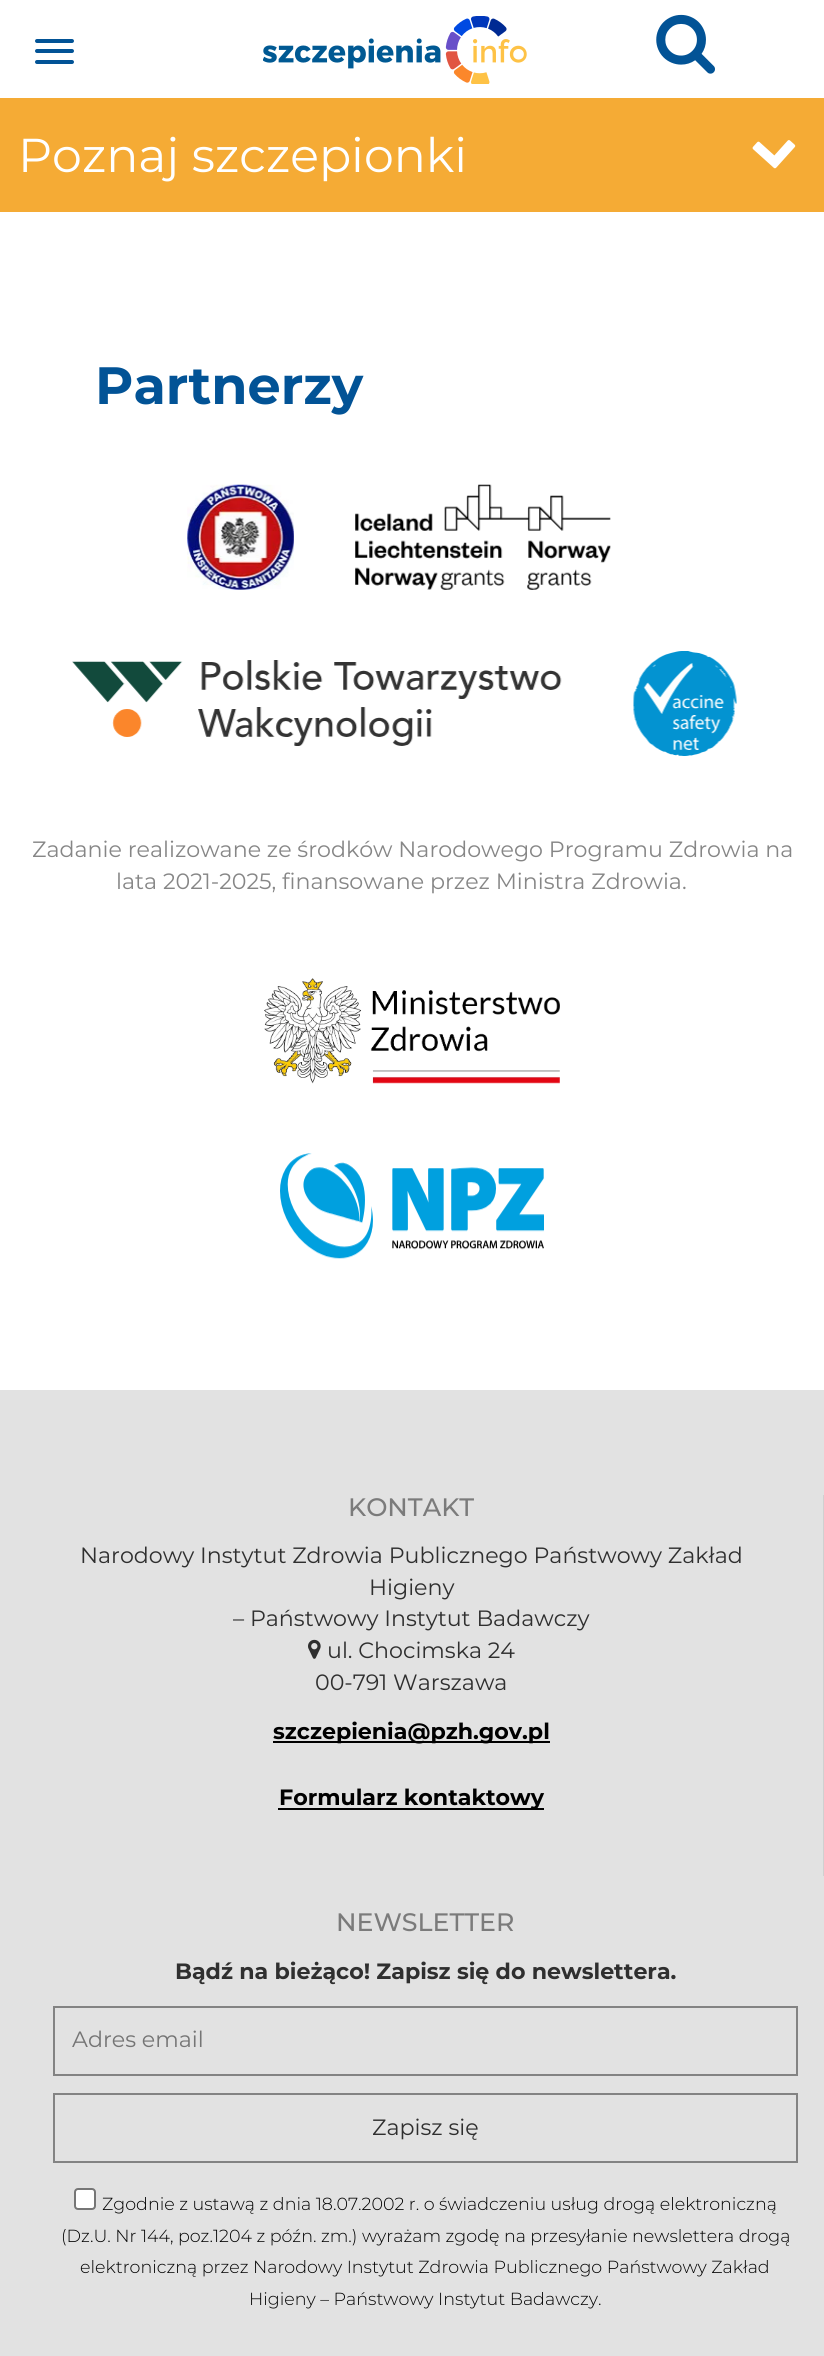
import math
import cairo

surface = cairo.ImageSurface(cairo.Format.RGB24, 824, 2356)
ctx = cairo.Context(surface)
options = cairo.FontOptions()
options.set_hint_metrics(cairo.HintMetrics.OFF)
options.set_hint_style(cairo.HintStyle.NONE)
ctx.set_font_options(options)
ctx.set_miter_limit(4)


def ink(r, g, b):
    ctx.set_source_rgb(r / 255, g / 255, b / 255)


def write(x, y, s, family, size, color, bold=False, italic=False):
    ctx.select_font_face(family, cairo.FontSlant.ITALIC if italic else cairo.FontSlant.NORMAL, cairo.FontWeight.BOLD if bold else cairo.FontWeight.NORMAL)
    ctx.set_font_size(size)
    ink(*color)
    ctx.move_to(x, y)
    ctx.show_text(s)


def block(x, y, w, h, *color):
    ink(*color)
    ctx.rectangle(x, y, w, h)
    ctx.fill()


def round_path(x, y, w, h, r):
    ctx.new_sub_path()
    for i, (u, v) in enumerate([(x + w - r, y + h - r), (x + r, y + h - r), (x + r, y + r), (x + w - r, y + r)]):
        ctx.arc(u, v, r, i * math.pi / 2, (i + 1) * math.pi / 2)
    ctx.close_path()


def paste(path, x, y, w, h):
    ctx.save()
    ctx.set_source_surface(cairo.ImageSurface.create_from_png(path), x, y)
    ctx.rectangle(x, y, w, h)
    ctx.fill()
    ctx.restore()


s1 = dict(family="Montserrat", size=47.5, color=(255, 255, 255))
s2 = dict(family="Montserrat", size=52.5, color=(2, 83, 150), bold=True)
s3 = dict(family="Montserrat", size=22.15, color=(134, 134, 134))
s4 = dict(family="Montserrat Medium", size=25.25, color=(123, 123, 123))
s5 = dict(family="Montserrat", size=22.15, color=(47, 47, 47))
s6 = dict(family="Montserrat", size=22.15, color=(0, 0, 0), bold=True)
s7 = dict(family="Montserrat", size=22.15, color=(47, 47, 47), bold=True)
s8 = dict(family="Montserrat", size=22.15, color=(117, 117, 117))
s9 = dict(family="Montserrat Light", size=17.5, color=(0, 0, 0))

ink(255, 255, 255)
ctx.paint()
ink(2, 83, 150)
round_path(35, 39, 39, 4, 2)
ctx.fill()
round_path(35, 49, 39, 4, 2)
ctx.fill()
round_path(35, 60, 39, 4, 2)
ctx.fill()
paste("pic1.png", 263, 16, 264, 68)
paste("pic2.png", 656, 14, 59, 60)
block(0, 98, 824, 114, 245, 171, 53)
write(18, 172, "Poznaj szczepionki", **s1)
paste("pic3.png", 752, 140, 44, 29)
write(95, 404, "Partnerzy", **s2)
paste("pic4.png", 187, 484, 107, 106)
paste("pic5.png", 355, 484, 256, 106)
paste("pic6.png", 72, 660, 490, 86)
paste("pic7.png", 633, 651, 104, 105)
write(32, 857, "Zadanie realizowane ze środków Narodowego Programu Zdrowia na", **s3)
write(116, 889, "lata 2021-2025, finansowane przez Ministra Zdrowia.", **s3)
paste("pic8.png", 264, 978, 296, 106)
paste("pic9.png", 280, 1153, 264, 106)
block(0, 1390, 824, 966, 226, 226, 226)
block(823, 1495, 1, 381, 208, 208, 208)
write(348, 1516, "KONTAKT", **s4)
write(80, 1563, "Narodowy Instytut Zdrowia Publicznego Państwowy Zakład", **s5)
write(369, 1595, "Higieny", **s5)
write(233, 1626, "– Państwowy Instytut Badawczy", **s5)
paste("pic10.png", 308, 1639, 13, 20)
write(327, 1658, "ul. Chocimska 24", **s5)
write(315, 1690, "00-791 Warszawa", **s5)
block(273, 1741, 277, 2, 0, 0, 0)
write(273, 1739, "szczepienia@pzh.gov.pl", **s6)
block(278, 1808, 266, 2, 0, 0, 0)
write(279, 1805, "Formularz kontaktowy", **s6)
write(336, 1931, "NEWSLETTER", **s4)
write(175, 1979, "Bądź na bieżąco! Zapisz się do newslettera.", **s7)
ctx.rectangle(54, 2007, 743, 68)
ink(131, 131, 131)
ctx.stroke()
write(72, 2047, "Adres email", **s8)
ctx.rectangle(54, 2094, 743, 68)
ink(131, 131, 131)
ctx.stroke()
write(372, 2135, "Zapisz się", **s5)
ink(255, 255, 255)
round_path(75, 2189, 20, 20, 3)
ctx.fill_preserve()
ink(118, 118, 118)
ctx.stroke()
write(102, 2210, "Zgodnie z ustawą z dnia 18.07.2002 r. o świadczeniu usług drogą elektroniczną", **s9)
write(61, 2242, "(Dz.U. Nr 144, poz.1204 z późn. zm.) wyrażam zgodę na przesyłanie newslettera drogą", **s9)
write(80, 2273, "elektroniczną przez Narodowy Instytut Zdrowia Publicznego Państwowy Zakład", **s9)
write(249, 2305, "Higieny – Państwowy Instytut Badawczy.", **s9)
surface.write_to_png("screenshot.png")
